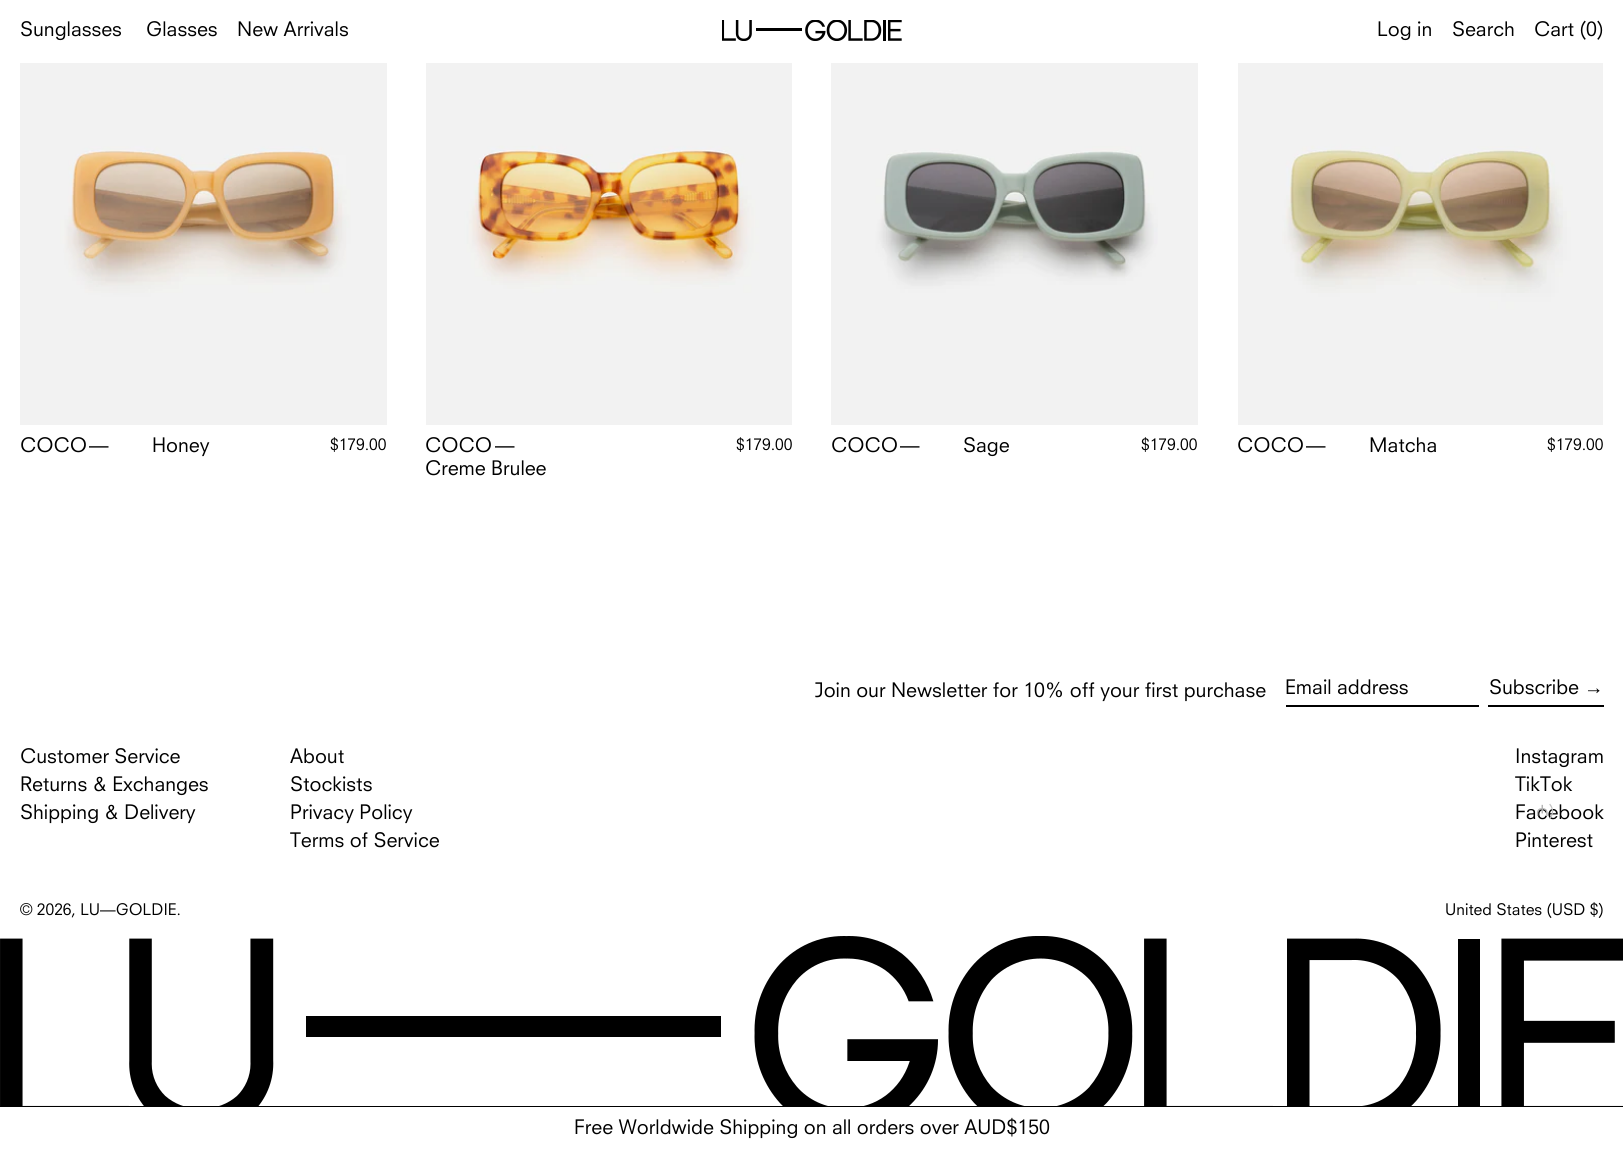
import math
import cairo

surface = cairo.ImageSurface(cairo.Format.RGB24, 1623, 1150)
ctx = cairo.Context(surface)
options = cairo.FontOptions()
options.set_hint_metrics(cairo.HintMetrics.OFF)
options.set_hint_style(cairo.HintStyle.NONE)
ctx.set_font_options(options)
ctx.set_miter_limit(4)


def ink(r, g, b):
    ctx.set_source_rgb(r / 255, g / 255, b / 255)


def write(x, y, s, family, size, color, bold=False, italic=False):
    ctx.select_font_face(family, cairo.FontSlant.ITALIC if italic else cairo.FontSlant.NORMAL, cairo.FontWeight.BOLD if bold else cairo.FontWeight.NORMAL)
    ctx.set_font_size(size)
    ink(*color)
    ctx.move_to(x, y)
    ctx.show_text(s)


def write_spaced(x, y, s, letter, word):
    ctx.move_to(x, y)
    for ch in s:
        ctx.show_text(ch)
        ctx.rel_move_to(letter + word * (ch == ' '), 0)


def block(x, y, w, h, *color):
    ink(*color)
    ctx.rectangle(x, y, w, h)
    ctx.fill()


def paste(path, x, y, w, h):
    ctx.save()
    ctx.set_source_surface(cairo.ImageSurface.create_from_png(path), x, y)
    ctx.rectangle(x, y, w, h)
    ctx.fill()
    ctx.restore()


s1 = dict(family="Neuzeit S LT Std", size=19.5, color=(0, 0, 0))
s2 = dict(family="Neuzeit S LT Std", size=15.6, color=(0, 0, 0))
s3 = dict(family="Liberation Serif", size=19.5, color=(0, 0, 0))
s4 = dict(family="Noto Sans", size=15.6, color=(178, 178, 178))
s5 = dict(family="Neuzeit S LT Std", size=15.6, color=(194, 194, 194))

ink(255, 255, 255)
ctx.paint()
write(20, 36, "Sunglasses", **s1)
write(146, 36, "Glasses", **s1)
write(237, 36, "New Arrivals", **s1)
paste("pic1.png", 722, 20, 180, 21)
write(1377, 36, "Log in", **s1)
write(1452, 36, "Search", **s1)
write(1534, 36, "Cart (0)", **s1)
paste("pic2.png", 20, 63, 367, 362)
write(20, 452, "COCO", **s1)
write_spaced(89, 452, "—", 10, 0)
write(152, 452, "Honey", **s1)
write(330, 450, "$179.00", **s2)
paste("pic3.png", 426, 63, 366, 362)
write(425, 452, "COCO", **s1)
write_spaced(495, 452, "—", 10, 0)
write(425, 475, "Creme Brulee", **s1)
write(736, 450, "$179.00", **s2)
paste("pic4.png", 831, 63, 367, 362)
write(831, 452, "COCO", **s1)
write_spaced(900, 452, "—", 10, 0)
write(963, 452, "Sage", **s1)
write(1141, 450, "$179.00", **s2)
paste("pic5.png", 1238, 63, 365, 362)
write(1237, 452, "COCO", **s1)
write_spaced(1306, 452, "—", 10, 0)
write(1369, 452, "Matcha", **s1)
write(1547, 450, "$179.00", **s2)
write(815, 697, "Join our Newsletter for 10% off your first purchase", **s1)
block(1286, 705, 193, 2, 0, 0, 0)
write(1285, 694, "Email address", **s1)
block(1488, 705, 116, 2, 0, 0, 0)
write(1489, 694, "Subscribe", **s1)
write(1584, 694, "→", **s3)
write(20, 763, "Customer Service", **s1)
write(20, 791, "Returns & Exchanges", **s1)
write(20, 819, "Shipping & Delivery", **s1)
write(290, 763, "About", **s1)
write(290, 791, "Stockists", **s1)
write(290, 819, "Privacy Policy", **s1)
write(290, 847, "Terms of Service", **s1)
write(1515, 763, "Instagram", **s1)
write(1515, 791, "TikTok", **s1)
write(1515, 819, "Facebook", **s1)
write(1515, 847, "Pinterest", **s1)
write(20, 915, "© 2026, LU—GOLDIE.", **s2)
write(1536, 816, "₼", **s4)
write(1549, 816, ")", **s5)
write(1445, 915, "United States (USD $)", **s2)
paste("pic6.png", 0, 936, 1623, 170)
block(0, 1106, 1623, 1, 0, 0, 0)
write(574, 1134, "Free Worldwide Shipping on all orders over AUD$150", **s1)
surface.write_to_png("screenshot.png")
